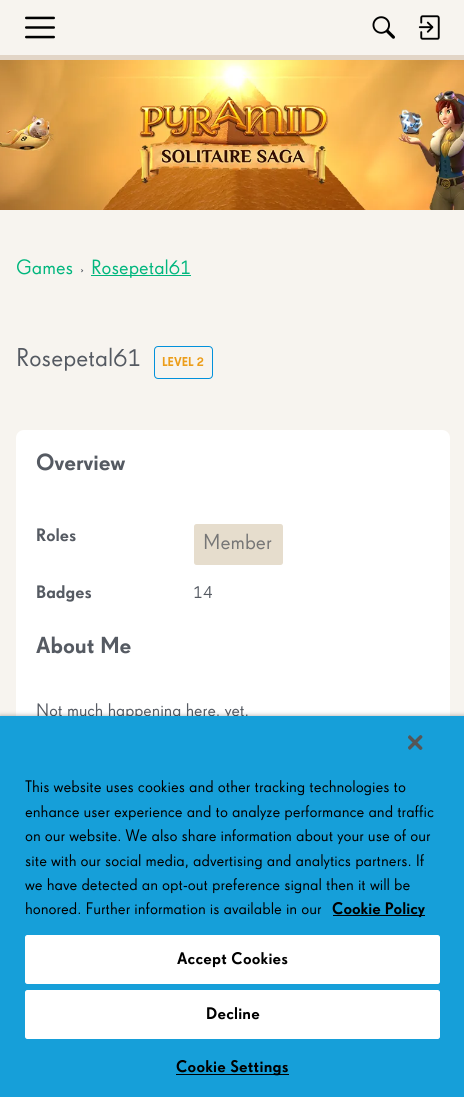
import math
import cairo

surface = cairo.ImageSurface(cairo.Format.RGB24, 464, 1097)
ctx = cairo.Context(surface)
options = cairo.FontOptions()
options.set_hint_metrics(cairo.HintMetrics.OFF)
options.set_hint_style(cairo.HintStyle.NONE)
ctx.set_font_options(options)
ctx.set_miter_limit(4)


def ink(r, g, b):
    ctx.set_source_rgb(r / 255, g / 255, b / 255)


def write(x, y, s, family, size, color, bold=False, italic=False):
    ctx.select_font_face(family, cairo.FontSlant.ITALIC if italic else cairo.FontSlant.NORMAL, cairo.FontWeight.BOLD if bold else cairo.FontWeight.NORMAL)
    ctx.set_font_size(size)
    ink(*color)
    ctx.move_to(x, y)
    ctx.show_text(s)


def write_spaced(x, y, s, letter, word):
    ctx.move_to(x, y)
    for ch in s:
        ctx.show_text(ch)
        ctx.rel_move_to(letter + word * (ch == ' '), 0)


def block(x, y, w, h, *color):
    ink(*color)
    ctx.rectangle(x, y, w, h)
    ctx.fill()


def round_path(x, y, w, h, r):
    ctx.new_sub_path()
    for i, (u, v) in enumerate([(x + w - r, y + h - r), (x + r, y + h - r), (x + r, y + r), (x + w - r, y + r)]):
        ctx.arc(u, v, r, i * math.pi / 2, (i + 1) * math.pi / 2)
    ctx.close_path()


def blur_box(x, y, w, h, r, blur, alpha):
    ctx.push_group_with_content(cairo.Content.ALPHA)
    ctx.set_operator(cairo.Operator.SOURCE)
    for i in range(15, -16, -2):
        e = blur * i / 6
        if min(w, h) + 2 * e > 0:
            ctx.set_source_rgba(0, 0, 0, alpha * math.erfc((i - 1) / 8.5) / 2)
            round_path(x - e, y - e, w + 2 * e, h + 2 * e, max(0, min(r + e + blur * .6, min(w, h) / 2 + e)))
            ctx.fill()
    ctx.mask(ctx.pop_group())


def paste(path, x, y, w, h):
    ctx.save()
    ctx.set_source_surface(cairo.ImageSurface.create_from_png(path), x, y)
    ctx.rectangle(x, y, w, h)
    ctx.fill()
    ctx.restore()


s1 = dict(family="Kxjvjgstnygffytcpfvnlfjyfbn", size=20, color=(0, 182, 125))
s2 = dict(family="Kxjvjgstnygffytcpfvnlfjyfbn", size=15, color=(85, 90, 98))
s3 = dict(family="Kxjvjgstnygffytcpfvnlfjyfbn", size=25, color=(85, 90, 98))
s4 = dict(family="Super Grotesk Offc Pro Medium", size=12.5, color=(236, 157, 25))
s5 = dict(family="Super Grotesk Offc Pro Medium", size=22.5, color=(85, 90, 98))
s6 = dict(family="Super Grotesk Offc Pro Medium", size=17.5, color=(85, 90, 98))
s7 = dict(family="Kxjvjgstnygffytcpfvnlfjyfbn", size=21, color=(118, 118, 118))
s8 = dict(family="Kxjvjgstnygffytcpfvnlfjyfbn", size=17.5, color=(85, 90, 98))
s9 = dict(family="Kxjvjgstnygffytcpfvnlfjyfbn", size=16.25, color=(0, 0, 0))
s10 = dict(family="Super Grotesk Offc Pro Medium", size=16.25, color=(0, 0, 0))

ink(247, 244, 239)
ctx.paint()
block(0, 55, 464, 5, 226, 213, 199)
paste("pic1.png", 25, 16, 30, 23)
paste("pic2.png", 372, 16, 23, 23)
paste("pic3.png", 418, 15, 22, 25)
paste("pic4.png", 0, 60, 464, 150)
write(16, 274, "Games", **s1)
write(80, 274, "›", **s2)
block(91, 275, 100, 1, 0, 182, 125)
write(91, 274, "Rosepetal61", **s1)
write(16, 366, "Rosepetal61", **s3)
round_path(154.5, 346.5, 58, 32, 3.5)
ink(2, 145, 219)
ctx.set_line_width(1)
ctx.stroke()
write(162, 366, "LEVEL 2", **s4)
ink(255, 255, 255)
round_path(16, 430, 434, 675, 8)
ctx.fill()
write(36, 470, "Overview", **s5)
write(36, 541, "Roles", **s6)
ink(230, 221, 205)
round_path(194, 524, 89, 41, 2.5)
ctx.fill()
write(203, 549, "Member", **s7)
write(36, 598, "Badges", **s6)
write(193, 598, "14", **s8)
write(36, 653, "About Me", **s5)
write(36, 716, "Not much happening here, yet.", **s8)
ink(0, 0, 0)
blur_box(0, 716, 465, 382, 0, 2.5, 0.35)
block(0, 716, 464, 381, 22, 159, 217)
paste("pic5.png", 408, 735, 15, 15)
write(25, 792, "This website uses cookies and other tracking technologies to", **s9)
write(25, 817, "enhance user experience and to analyze performance and traffic", **s9)
write(25, 841, "on our website. We also share information about your use of our", **s9)
write(25, 866, "site with our social media, advertising and analytics partners. If", **s9)
write(25, 890, "we have detected an opt-out preference signal then it will be", **s9)
write(25, 914, "honored. Further information is available in our", **s9)
block(333, 915, 92, 1, 0, 0, 0)
write(332, 914, "Cookie Policy", **s10)
ink(255, 255, 255)
round_path(25.5, 935.5, 414, 48, 2)
ctx.fill_preserve()
ctx.stroke()
ink(0, 0, 0)
write_spaced(177, 964, "Accept Cookies", 0.2, 0)
ink(255, 255, 255)
round_path(25.5, 990.5, 414, 48, 2)
ctx.fill_preserve()
ctx.stroke()
ink(0, 0, 0)
write_spaced(206, 1019, "Decline", 0.2, 0)
block(176, 1074, 113, 1, 0, 0, 0)
write_spaced(176, 1072, "Cookie Settings", 0.2, 0)
surface.write_to_png("screenshot.png")
